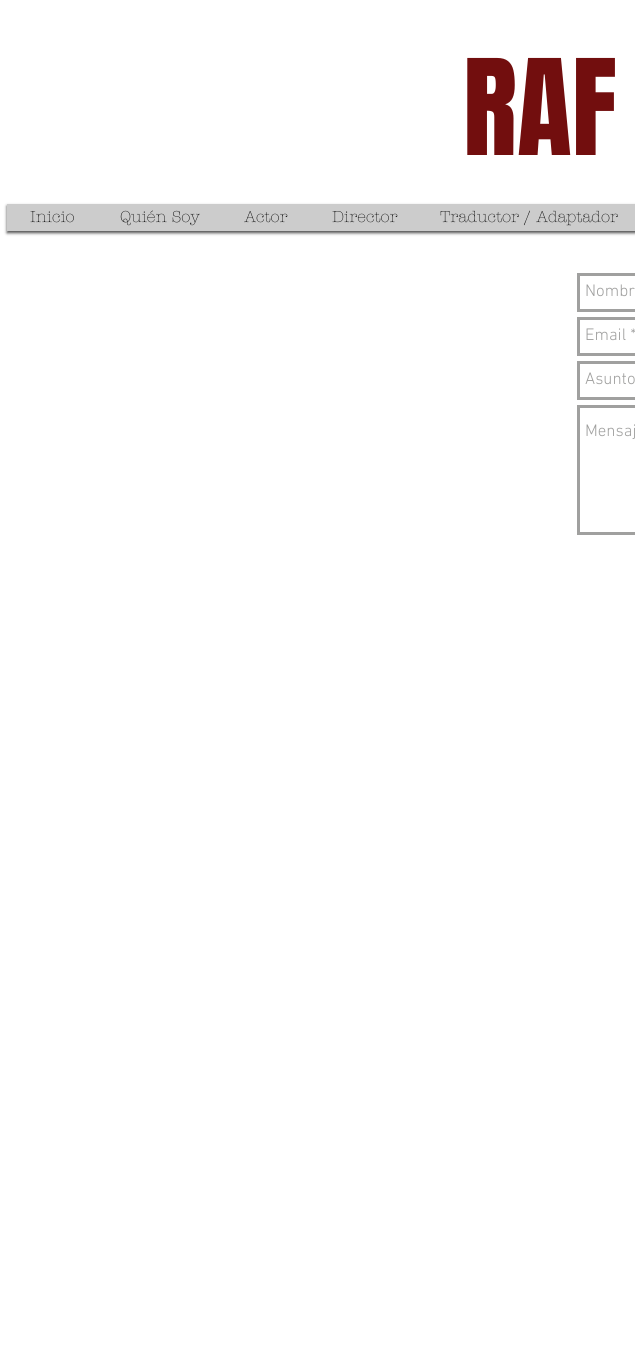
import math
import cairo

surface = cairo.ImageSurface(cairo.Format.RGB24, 635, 1372)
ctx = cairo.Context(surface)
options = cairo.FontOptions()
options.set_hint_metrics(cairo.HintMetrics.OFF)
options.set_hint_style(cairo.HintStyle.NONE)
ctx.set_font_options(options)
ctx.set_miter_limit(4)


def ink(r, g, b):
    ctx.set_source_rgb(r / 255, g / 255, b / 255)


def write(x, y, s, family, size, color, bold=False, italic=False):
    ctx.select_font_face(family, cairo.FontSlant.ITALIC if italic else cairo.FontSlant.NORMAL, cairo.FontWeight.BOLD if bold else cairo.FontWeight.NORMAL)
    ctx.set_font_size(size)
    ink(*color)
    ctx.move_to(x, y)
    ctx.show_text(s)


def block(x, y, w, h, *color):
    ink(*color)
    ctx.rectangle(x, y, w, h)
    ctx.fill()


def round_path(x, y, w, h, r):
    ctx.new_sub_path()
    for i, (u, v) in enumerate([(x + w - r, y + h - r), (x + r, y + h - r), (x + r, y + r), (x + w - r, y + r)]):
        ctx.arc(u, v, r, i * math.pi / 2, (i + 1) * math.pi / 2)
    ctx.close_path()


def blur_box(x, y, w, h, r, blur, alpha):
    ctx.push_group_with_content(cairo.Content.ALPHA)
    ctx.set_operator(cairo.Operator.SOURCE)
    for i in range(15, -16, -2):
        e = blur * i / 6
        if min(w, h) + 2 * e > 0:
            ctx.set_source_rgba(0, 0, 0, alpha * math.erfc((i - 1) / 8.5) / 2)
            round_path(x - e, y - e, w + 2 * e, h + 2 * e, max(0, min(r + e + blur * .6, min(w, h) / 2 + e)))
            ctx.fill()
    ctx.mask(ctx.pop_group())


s1 = dict(family="Anton", size=113, color=(114, 14, 14))
s2 = dict(family="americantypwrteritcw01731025 Light", size=16, color=(0, 0, 0))
s3 = dict(family="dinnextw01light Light", size=17, color=(160, 160, 159))

ink(255, 255, 255)
ctx.paint()
write(463, 155, "RAF", **s1)
ink(0, 0, 0)
blur_box(7, 206, 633, 27, 0, 1.5, 0.7)
block(7, 204, 628, 27, 204, 204, 204)
write(30, 222, "Inicio", **s2)
write(120, 222, "Quién Soy", **s2)
write(244, 222, "Actor", **s2)
write(332, 222, "Director", **s2)
write(440, 222, "Traductor / Adaptador", **s2)
ctx.rectangle(578.5, 274.5, 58, 36)
ink(160, 160, 159)
ctx.set_line_width(3)
ctx.stroke()
write(585, 296, "Nombr", **s3)
ctx.rectangle(578.5, 318.5, 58, 36)
ctx.stroke()
write(585, 340, "Email *", **s3)
ctx.rectangle(578.5, 362.5, 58, 36)
ctx.stroke()
write(585, 384, "Asunto", **s3)
ctx.rectangle(578.5, 406.5, 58, 127)
ctx.stroke()
write(585, 436, "Mensaj", **s3)
surface.write_to_png("screenshot.png")
